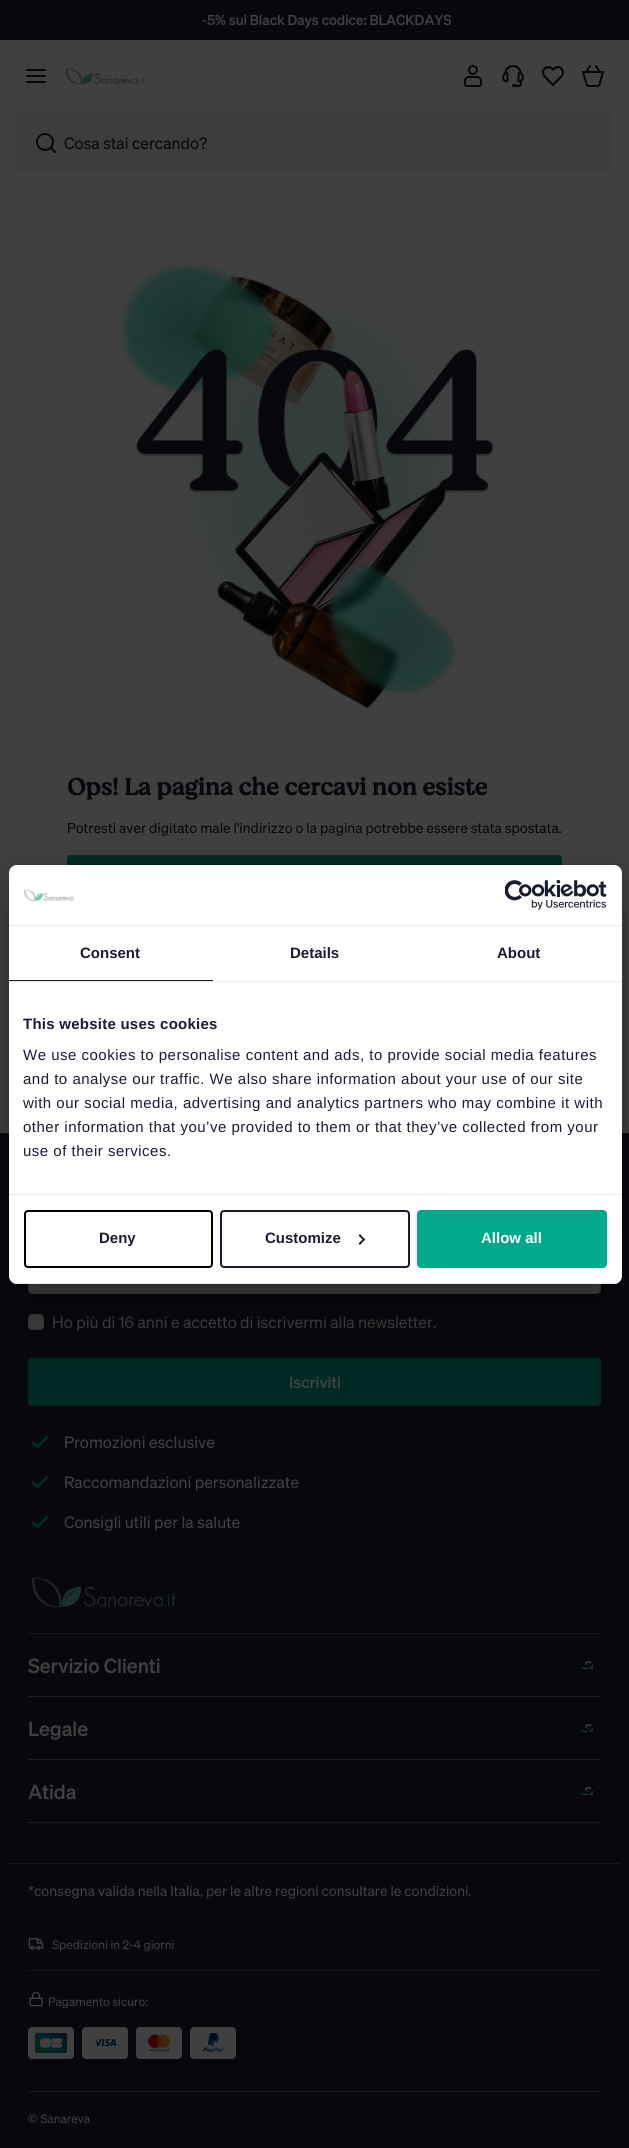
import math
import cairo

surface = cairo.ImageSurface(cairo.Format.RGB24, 629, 2148)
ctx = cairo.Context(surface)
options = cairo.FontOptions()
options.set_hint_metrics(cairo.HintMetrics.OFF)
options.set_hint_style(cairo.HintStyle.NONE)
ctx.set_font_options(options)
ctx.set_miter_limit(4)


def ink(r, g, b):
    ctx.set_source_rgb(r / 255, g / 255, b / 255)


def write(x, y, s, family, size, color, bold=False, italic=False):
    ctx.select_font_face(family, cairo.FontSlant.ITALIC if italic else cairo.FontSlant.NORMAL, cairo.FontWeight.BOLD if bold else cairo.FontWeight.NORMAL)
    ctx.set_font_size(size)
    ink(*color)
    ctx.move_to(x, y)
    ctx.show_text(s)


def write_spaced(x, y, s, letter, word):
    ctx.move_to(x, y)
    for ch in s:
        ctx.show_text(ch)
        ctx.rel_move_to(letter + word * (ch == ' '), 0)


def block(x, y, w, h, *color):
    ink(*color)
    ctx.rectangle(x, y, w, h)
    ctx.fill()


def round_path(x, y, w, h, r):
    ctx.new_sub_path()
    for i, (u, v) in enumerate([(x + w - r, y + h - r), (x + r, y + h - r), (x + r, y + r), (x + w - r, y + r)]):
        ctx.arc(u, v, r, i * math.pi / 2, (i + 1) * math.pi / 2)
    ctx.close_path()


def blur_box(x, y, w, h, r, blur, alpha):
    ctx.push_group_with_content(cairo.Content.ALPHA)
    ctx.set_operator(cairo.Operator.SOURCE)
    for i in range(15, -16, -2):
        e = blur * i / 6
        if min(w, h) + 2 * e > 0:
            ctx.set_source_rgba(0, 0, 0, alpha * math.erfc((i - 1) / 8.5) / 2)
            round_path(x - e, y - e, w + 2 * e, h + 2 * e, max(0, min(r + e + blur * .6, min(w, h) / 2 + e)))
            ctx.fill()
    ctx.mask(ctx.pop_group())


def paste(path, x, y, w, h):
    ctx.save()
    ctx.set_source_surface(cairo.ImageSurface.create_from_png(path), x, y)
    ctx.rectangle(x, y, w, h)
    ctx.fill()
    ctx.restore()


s1 = dict(family="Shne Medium", size=14, color=(64, 64, 64))
s2 = dict(family="Shne", size=16, color=(7, 7, 13))
s3 = dict(family="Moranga", size=24, color=(7, 7, 13), bold=True)
s4 = dict(family="Shne", size=14, color=(7, 7, 13))
s5 = dict(family="Shne", size=16, color=(64, 64, 64))
s6 = dict(family="Shne Medium", size=16, color=(64, 64, 64))
s7 = dict(family="Shne Medium", size=20, color=(64, 64, 64))
s8 = dict(family="Shne", size=14, color=(64, 64, 64))
s9 = dict(family="Shne", size=12, color=(64, 64, 64))
s10 = dict(family="Liberation Sans", size=15, color=(26, 29, 50), bold=True)
s11 = dict(family="Liberation Sans", size=15, color=(255, 255, 255), bold=True)

ink(64, 64, 64)
ctx.paint()
block(0, 0, 629, 40, 7, 7, 13)
write(202, 25, "-5% sui Black Days codice: BLACKDAYS", **s1)
paste("pic1.png", 26, 69, 20, 14)
paste("pic2.png", 65, 68, 80, 17)
paste("pic3.png", 464, 65, 18, 22)
paste("pic4.png", 502, 65, 22, 22)
paste("pic5.png", 542, 66, 22, 20)
paste("pic6.png", 582, 65, 22, 22)
block(0, 189, 629, 1, 58, 58, 59)
block(16, 113, 597, 60, 61, 61, 61)
paste("pic7.png", 36, 133, 20, 20)
write(64, 149, "Cosa stai cercando?", **s2)
paste("pic8.png", 118, 261, 376, 449)
write(67, 795, "Ops! La pagina che cercavi non esiste", **s3)
write(67, 833, "Potresti aver digitato male l'indirizzo o la pagina potrebbe essere stata spostata.", **s4)
ink(0, 42, 35)
round_path(67, 855, 495, 48, 4)
ctx.fill()
block(0, 1133, 629, 1015, 7, 7, 13)
ink(64, 64, 64)
round_path(28.5, 1246.5, 572, 47, 3.5)
ctx.fill_preserve()
ink(54, 53, 53)
ctx.set_line_width(1)
ctx.stroke()
ink(64, 64, 64)
round_path(28.5, 1314.5, 15, 15, 3.5)
ctx.fill_preserve()
ink(54, 53, 53)
ctx.stroke()
write(52, 1328, "Ho più di 16 anni e accetto di iscrivermi alla newsletter.", **s5)
ink(0, 42, 35)
round_path(28, 1358, 573, 48, 4)
ctx.fill()
write(289, 1388, "Iscriviti", **s6)
paste("pic9.png", 32, 1436, 16, 12)
write(64, 1448, "Promozioni esclusive", **s5)
paste("pic9.png", 32, 1476, 16, 12)
write(64, 1488, "Raccomandazioni personalizzate", **s5)
paste("pic9.png", 32, 1516, 16, 12)
write(64, 1528, "Consigli utili per la salute", **s5)
block(28, 1633, 573, 1, 23, 23, 26)
paste("pic10.png", 32, 1577, 144, 31)
block(28, 1696, 573, 1, 29, 30, 33)
write(28, 1673, "Servizio Clienti", **s7)
paste("pic11.png", 581, 1661, 12, 8)
block(28, 1759, 573, 1, 29, 30, 33)
write(28, 1736, "Legale", **s7)
paste("pic11.png", 581, 1724, 12, 8)
block(28, 1822, 573, 1, 29, 30, 33)
write(28, 1799, "Atida", **s7)
paste("pic11.png", 581, 1787, 12, 8)
block(8, 1863, 613, 1, 23, 23, 26)
write(28, 1896, "*consegna valida nella Italia, per le altre regioni consultare le condizioni.", **s8)
paste("pic12.png", 28, 1938, 16, 12)
write(52, 1949, "Spedizioni in 2-4 giorni", **s9)
block(28, 1970, 573, 1, 23, 23, 26)
paste("pic13.png", 29, 1991, 14, 16)
write(48, 2006, "Pagamento sicuro:", **s9)
round_path(28, 2027, 46, 32, 4)
ctx.fill()
paste("pic14.png", 35, 2033, 32, 20)
round_path(82, 2027, 46, 32, 4)
ctx.fill()
paste("pic15.png", 93, 2038, 24, 9)
round_path(136, 2027, 46, 32, 4)
ctx.fill()
paste("pic16.png", 148, 2034, 22, 18)
round_path(190, 2027, 46, 32, 4)
ctx.fill()
paste("pic17.png", 203, 2033, 20, 20)
block(28, 2091, 573, 1, 23, 23, 26)
write(28, 2123, "© Sanareva", **s9)
ink(0, 0, 0)
blur_box(9, 897, 613, 419, 8, 34, 0.3)
ink(255, 255, 255)
round_path(9, 865, 613, 419, 8)
ctx.fill()
block(9, 925, 613, 1, 232, 232, 232)
paste("pic18.png", 23, 889, 51, 13)
paste("pic19.png", 505, 880, 102, 30)
block(9, 981, 613, 1, 232, 232, 232)
block(9, 980, 204, 1, 26, 29, 50)
write(80, 958, "Consent", **s10)
write(290, 958, "Details", **s10)
write(497, 958, "About", **s10)
block(9, 1194, 613, 1, 232, 232, 232)
ink(26, 29, 50)
write_spaced(23, 1029, "This website uses cookies", 0.25, 0)
ctx.select_font_face("Liberation Sans")
write_spaced(23, 1060, "We use cookies to personalise content and ads, to provide social media features", 0.5, 0)
write_spaced(23, 1084, "and to analyse our traffic. We also share information about your use of our site", 0.5, 0)
write_spaced(23, 1108, "with our social media, advertising and analytics partners who may combine it with", 0.5, 0)
write_spaced(23, 1132, "other information that you’ve provided to them or that they’ve collected from your", 0.5, 0)
write_spaced(23, 1156, "use of their services.", 0.5, 0)
ctx.save()
round_path(9, 865, 613, 419, 8)
ctx.clip()
block(9, 1283, 613, 1, 232, 232, 232)
ctx.restore()
round_path(25, 1211, 187, 56, 3)
ink(0, 0, 0)
ctx.set_line_width(2)
ctx.stroke()
write(99, 1243, "Deny", **s10)
round_path(221, 1211, 188, 56, 3)
ctx.stroke()
write(265, 1243, "Customize", **s10)
ctx.new_path()
ctx.move_to(360, 1234)
ctx.line_to(365, 1239.5)
ctx.line_to(364, 1241)
ctx.line_to(358.5, 1235.5)
ctx.close_path()
ctx.fill()
ctx.new_path()
ctx.move_to(364, 1238)
ctx.line_to(365, 1239.5)
ctx.line_to(360, 1245)
ctx.line_to(358.5, 1243.5)
ctx.close_path()
ctx.fill()
ink(0, 168, 140)
round_path(418, 1211, 188, 56, 3)
ctx.fill_preserve()
ctx.stroke()
write(481, 1243, "Allow all", **s11)
surface.write_to_png("screenshot.png")
